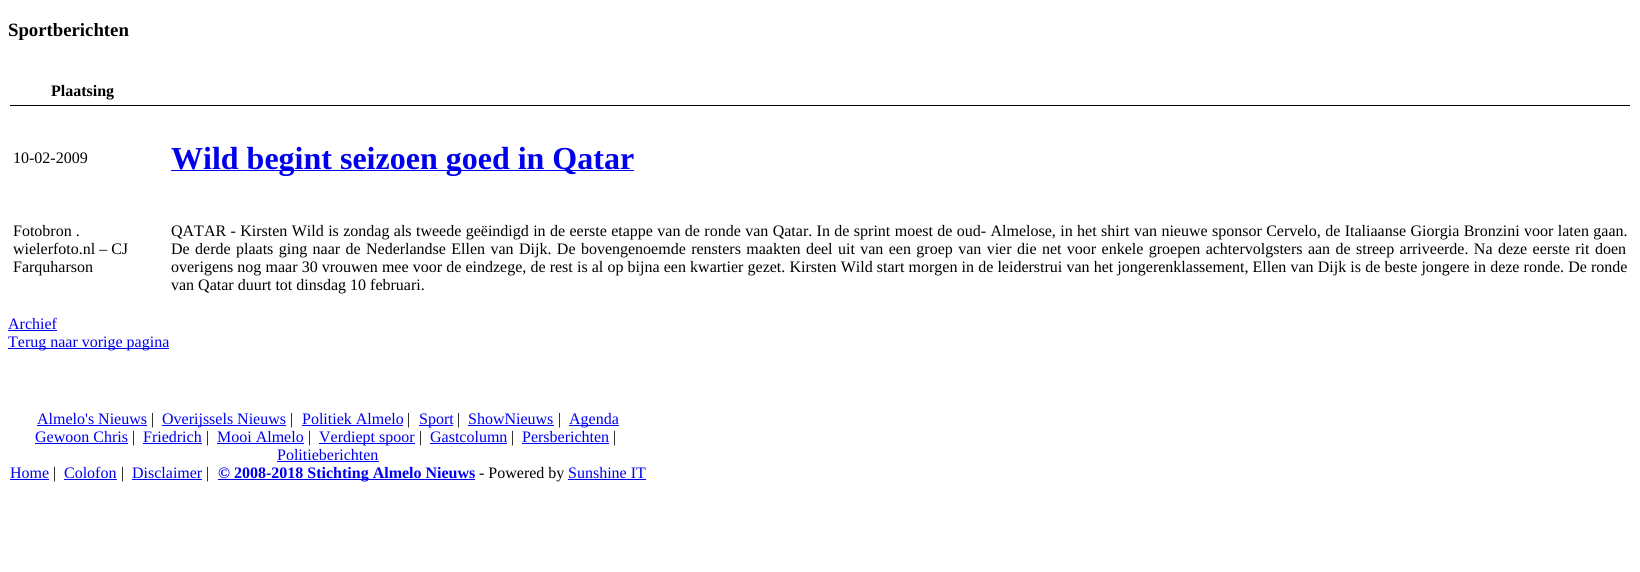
import math
import cairo

surface = cairo.ImageSurface(cairo.Format.RGB24, 1640, 572)
ctx = cairo.Context(surface)
options = cairo.FontOptions()
options.set_hint_metrics(cairo.HintMetrics.OFF)
options.set_hint_style(cairo.HintStyle.NONE)
ctx.set_font_options(options)
ctx.set_miter_limit(4)


def ink(r, g, b):
    ctx.set_source_rgb(r / 255, g / 255, b / 255)


def write(x, y, s, family, size, color, bold=False, italic=False):
    ctx.select_font_face(family, cairo.FontSlant.ITALIC if italic else cairo.FontSlant.NORMAL, cairo.FontWeight.BOLD if bold else cairo.FontWeight.NORMAL)
    ctx.set_font_size(size)
    ink(*color)
    ctx.move_to(x, y)
    ctx.show_text(s)


def write_spaced(x, y, s, letter, word):
    ctx.move_to(x, y)
    for ch in s:
        ctx.show_text(ch)
        ctx.rel_move_to(letter + word * (ch == ' '), 0)


def block(x, y, w, h, *color):
    ink(*color)
    ctx.rectangle(x, y, w, h)
    ctx.fill()


s1 = dict(family="Liberation Serif", size=18.75, color=(0, 0, 0), bold=True)
s2 = dict(family="Liberation Serif", size=16, color=(0, 0, 0), bold=True)
s3 = dict(family="Liberation Serif", size=16, color=(0, 0, 0))
s4 = dict(family="Liberation Serif", size=32, color=(0, 0, 238), bold=True)
s5 = dict(family="Liberation Serif", size=16, color=(0, 0, 238))
s6 = dict(family="Liberation Serif", size=16, color=(0, 0, 238), bold=True)

ink(255, 255, 255)
ctx.paint()
write(8, 36, "Sportberichten", **s1)
write(51, 96, "Plaatsing", **s2)
block(10, 105, 1620, 1, 0, 0, 0)
write(13, 163, "10-02-2009", **s3)
block(171, 170, 463, 1, 0, 0, 238)
write(171, 169, "Wild begint seizoen goed in Qatar", **s4)
write(13, 236, "Fotobron .", **s3)
write(13, 254, "wielerfoto.nl – CJ", **s3)
write(13, 272, "Farquharson", **s3)
write_spaced(171, 236, "QATAR - Kirsten Wild is zondag als tweede geëindigd in de eerste etappe van de ronde van Qatar. In de sprint moest de oud- Almelose, in het shirt van nieuwe sponsor Cervelo, de Italiaanse Giorgia Bronzini voor laten gaan.", 0, 0.4)
write_spaced(171, 254, "De derde plaats ging naar de Nederlandse Ellen van Dijk. De bovengenoemde rensters maakten deel uit van een groep van vier die net voor enkele groepen achtervolgsters aan de streep arriveerde. Na deze eerste rit doen", 0, 1.4)
write_spaced(171, 272, "overigens nog maar 30 vrouwen mee voor de eindzege, de rest is al op bijna een kwartier gezet. Kirsten Wild start morgen in de leiderstrui van het jongerenklassement, Ellen van Dijk is de beste jongere in deze ronde. De ronde", 0, 0.15)
write(171, 290, "van Qatar duurt tot dinsdag 10 februari.", **s3)
write(8, 329, "Archief", **s5)
block(8, 330, 49, 1, 0, 0, 238)
block(8, 348, 161, 1, 0, 0, 238)
write(8, 347, "Terug naar vorige pagina", **s5)
write(37, 424, "Almelo's Nieuws", **s5)
block(37, 425, 110, 1, 0, 0, 238)
write(151, 424, "|", **s3)
block(162, 425, 124, 1, 0, 0, 238)
write(162, 424, "Overijssels Nieuws", **s5)
write(290, 424, "|", **s3)
write(302, 424, "Politiek Almelo", **s5)
block(302, 425, 101, 1, 0, 0, 238)
write(407, 424, "|", **s3)
block(419, 425, 34, 1, 0, 0, 238)
write(419, 424, "Sport", **s5)
write(457, 424, "|", **s3)
write(468, 424, "ShowNieuws", **s5)
block(468, 425, 86, 1, 0, 0, 238)
write(558, 424, "|", **s3)
block(569, 425, 50, 1, 0, 0, 238)
write(569, 424, "Agenda", **s5)
write(35, 442, "Gewoon Chris", **s5)
block(35, 443, 93, 1, 0, 0, 238)
write(132, 442, "|", **s3)
write(143, 442, "Friedrich", **s5)
block(143, 443, 59, 1, 0, 0, 238)
write(206, 442, "|", **s3)
write(217, 442, "Mooi Almelo", **s5)
block(217, 443, 87, 1, 0, 0, 238)
write(308, 442, "|", **s3)
block(319, 443, 96, 1, 0, 0, 238)
write(319, 442, "Verdiept spoor", **s5)
write(419, 442, "|", **s3)
write(430, 442, "Gastcolumn", **s5)
block(430, 443, 77, 1, 0, 0, 238)
write(511, 442, "|", **s3)
write(522, 442, "Persberichten", **s5)
block(522, 443, 87, 1, 0, 0, 238)
write(613, 442, "|", **s3)
write(277, 460, "Politieberichten", **s5)
block(277, 461, 102, 1, 0, 0, 238)
write(10, 478, "Home", **s5)
block(10, 479, 39, 1, 0, 0, 238)
write(53, 478, "|", **s3)
write(64, 478, "Colofon", **s5)
block(64, 479, 53, 1, 0, 0, 238)
write(121, 478, "|", **s3)
write(132, 478, "Disclaimer", **s5)
block(132, 479, 70, 1, 0, 0, 238)
write(206, 478, "|", **s3)
block(218, 479, 257, 1, 0, 0, 238)
write(218, 478, "© 2008-2018 Stichting Almelo Nieuws", **s6)
write(479, 478, "- Powered by", **s3)
write(568, 478, "Sunshine IT", **s5)
block(568, 479, 78, 1, 0, 0, 238)
surface.write_to_png("screenshot.png")
